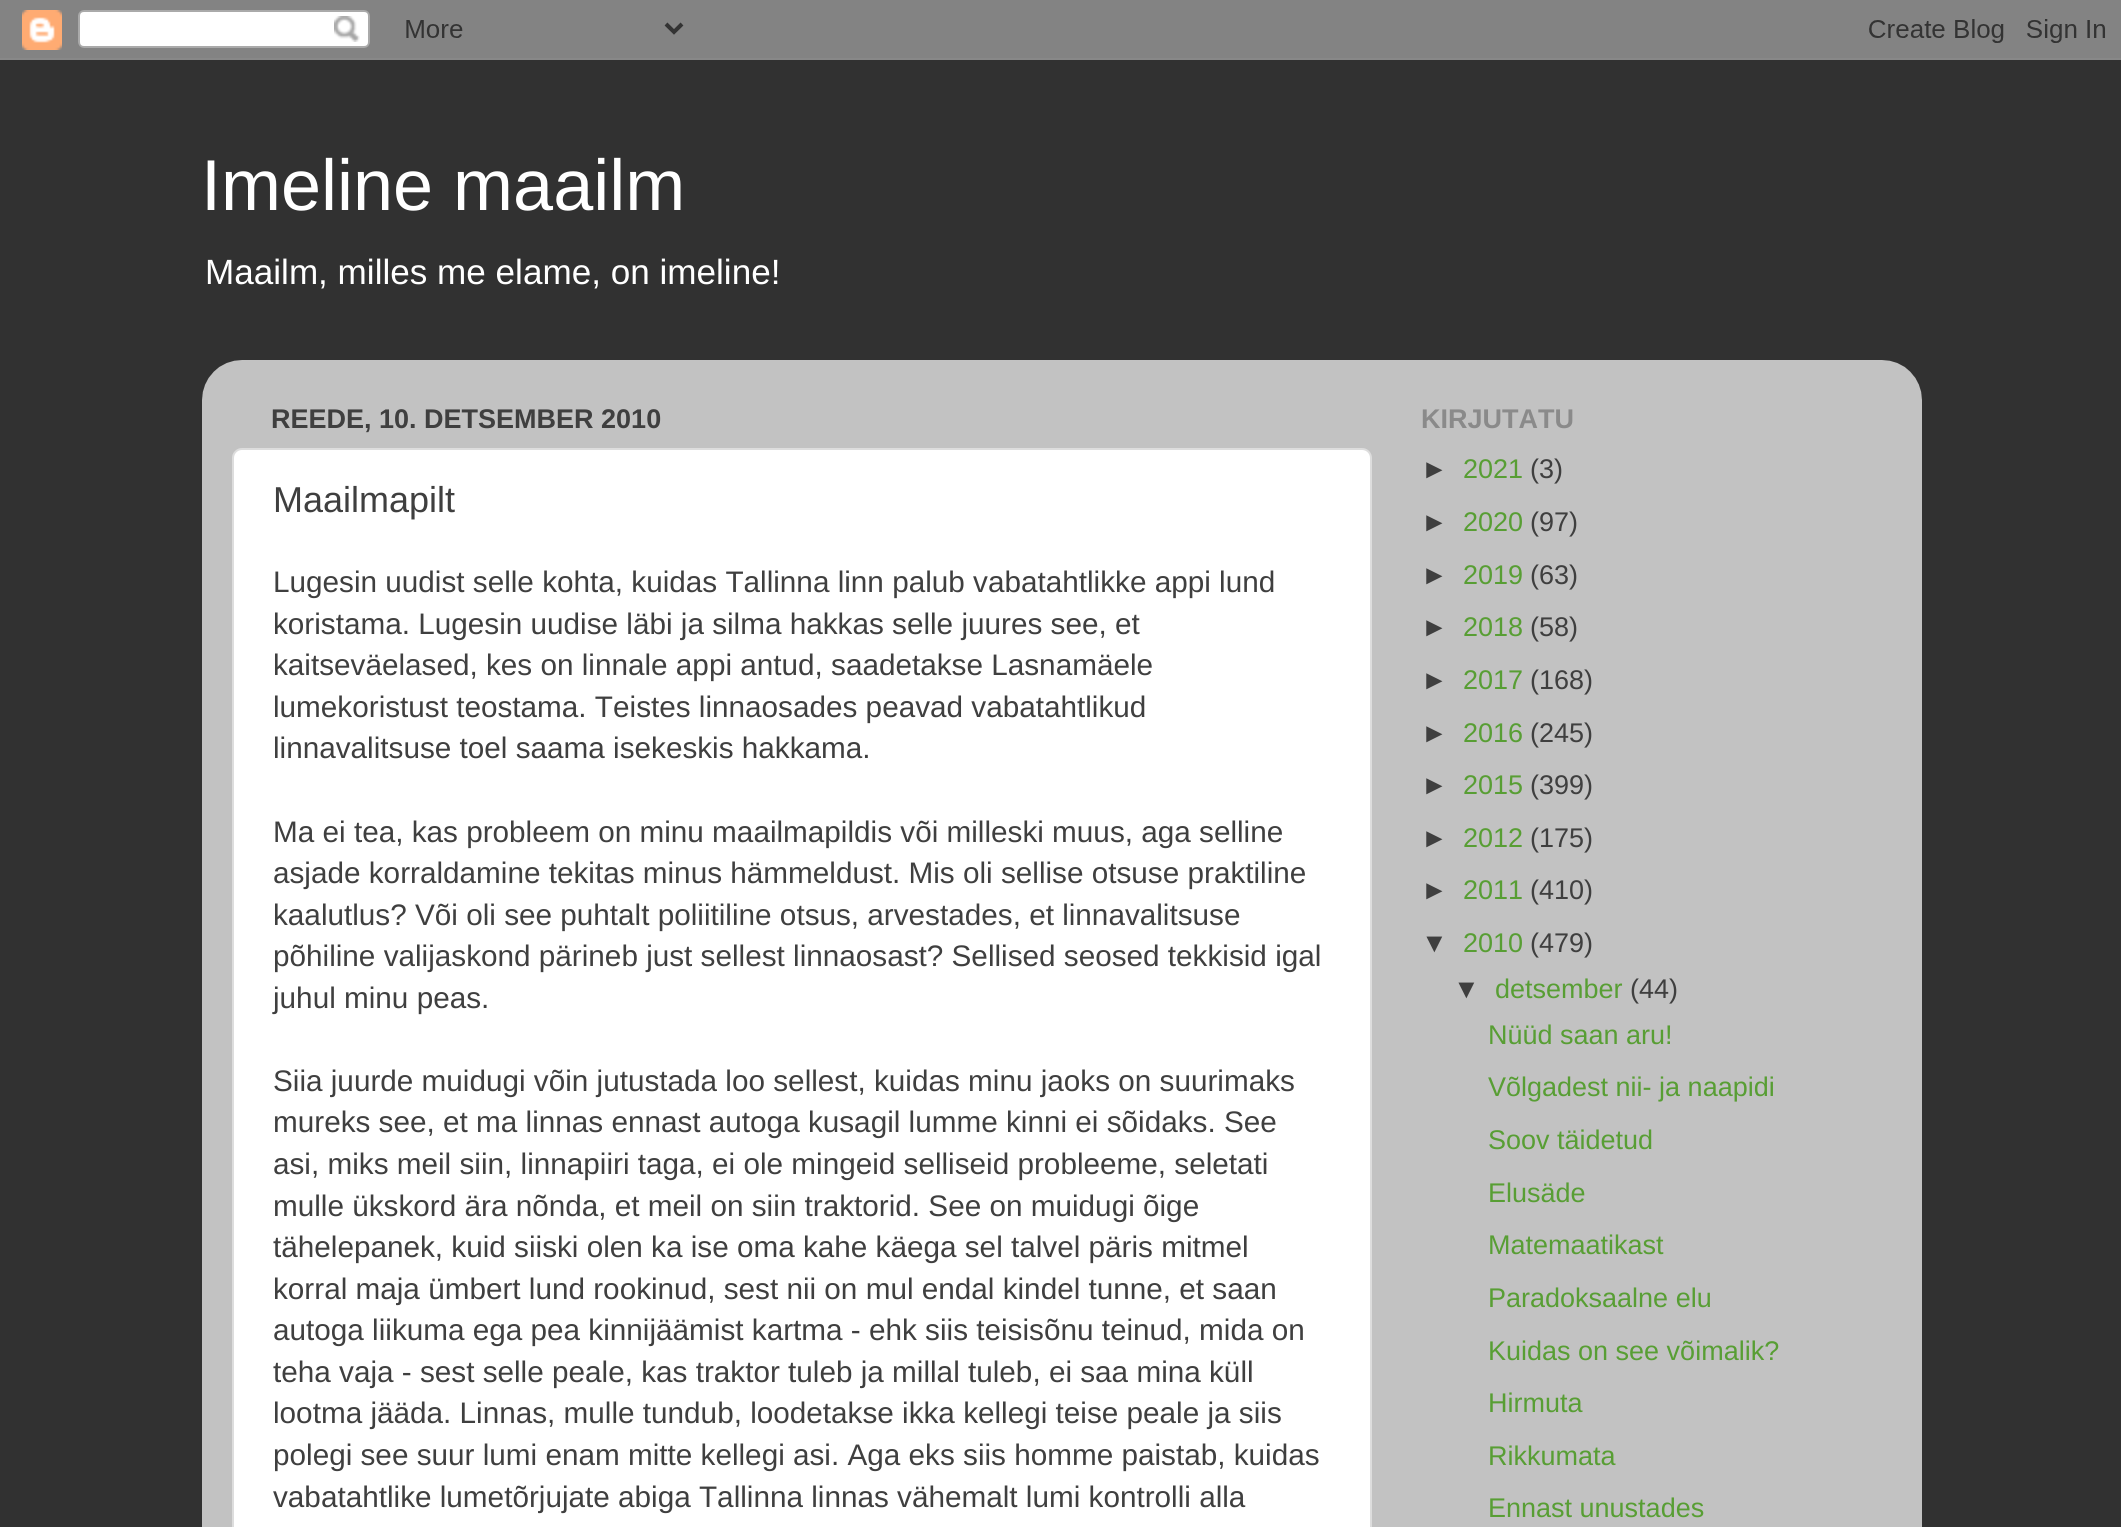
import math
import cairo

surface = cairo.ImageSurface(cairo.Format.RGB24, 2121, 1527)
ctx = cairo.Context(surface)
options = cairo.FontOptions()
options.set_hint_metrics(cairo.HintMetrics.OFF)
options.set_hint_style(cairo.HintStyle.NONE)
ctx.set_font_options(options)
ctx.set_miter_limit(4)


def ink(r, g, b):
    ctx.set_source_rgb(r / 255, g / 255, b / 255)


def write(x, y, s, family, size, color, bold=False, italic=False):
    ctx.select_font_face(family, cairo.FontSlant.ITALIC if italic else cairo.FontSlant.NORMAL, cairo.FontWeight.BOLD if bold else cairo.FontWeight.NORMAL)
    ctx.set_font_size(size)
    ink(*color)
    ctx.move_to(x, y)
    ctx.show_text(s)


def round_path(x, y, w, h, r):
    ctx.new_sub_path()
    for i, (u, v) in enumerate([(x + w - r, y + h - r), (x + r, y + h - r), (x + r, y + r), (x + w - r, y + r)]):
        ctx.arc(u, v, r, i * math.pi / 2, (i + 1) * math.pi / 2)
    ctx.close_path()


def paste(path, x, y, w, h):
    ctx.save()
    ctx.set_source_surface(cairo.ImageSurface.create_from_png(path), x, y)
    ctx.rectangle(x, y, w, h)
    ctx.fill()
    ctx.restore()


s1 = dict(family="Liberation Sans", size=72, color=(255, 255, 255))
s2 = dict(family="Liberation Sans", size=35.1, color=(255, 255, 255))
s3 = dict(family="Liberation Sans", size=27, color=(63, 63, 63), bold=True)
s4 = dict(family="Liberation Sans", size=36, color=(63, 63, 63))
s5 = dict(family="Liberation Sans", size=29.7, color=(63, 63, 63))
s6 = dict(family="Liberation Sans", size=27, color=(138, 138, 138), bold=True)
s7 = dict(family="Liberation Sans", size=27, color=(63, 63, 63))
s8 = dict(family="Liberation Sans", size=27, color=(88, 158, 52))

ink(49, 49, 49)
ctx.paint()
paste("pic1.png", 0, 0, 2121, 60)
write(201, 210, "Imeline maailm", **s1)
write(205, 284, "Maailm, milles me elame, on imeline!", **s2)
paste("pic2.png", 202, 360, 1720, 1167)
write(271, 428, "REEDE, 10. DETSEMBER 2010", **s3)
ink(255, 255, 255)
round_path(233, 449, 1138, 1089, 9)
ctx.fill_preserve()
ink(221, 221, 221)
ctx.stroke()
write(273, 512, "Maailmapilt", **s4)
write(273, 592, "Lugesin uudist selle kohta, kuidas Tallinna linn palub vabatahtlikke appi lund", **s5)
write(273, 634, "koristama. Lugesin uudise läbi ja silma hakkas selle juures see, et", **s5)
write(273, 675, "kaitseväelased, kes on linnale appi antud, saadetakse Lasnamäele", **s5)
write(273, 717, "lumekoristust teostama. Teistes linnaosades peavad vabatahtlikud", **s5)
write(273, 758, "linnavalitsuse toel saama isekeskis hakkama.", **s5)
write(273, 842, "Ma ei tea, kas probleem on minu maailmapildis või milleski muus, aga selline", **s5)
write(273, 883, "asjade korraldamine tekitas minus hämmeldust. Mis oli sellise otsuse praktiline", **s5)
write(273, 925, "kaalutlus? Või oli see puhtalt poliitiline otsus, arvestades, et linnavalitsuse", **s5)
write(273, 966, "põhiline valijaskond pärineb just sellest linnaosast? Sellised seosed tekkisid igal", **s5)
write(273, 1008, "juhul minu peas.", **s5)
write(273, 1091, "Siia juurde muidugi võin jutustada loo sellest, kuidas minu jaoks on suurimaks", **s5)
write(273, 1132, "mureks see, et ma linnas ennast autoga kusagil lumme kinni ei sõidaks. See", **s5)
write(273, 1174, "asi, miks meil siin, linnapiiri taga, ei ole mingeid selliseid probleeme, seletati", **s5)
write(273, 1216, "mulle ükskord ära nõnda, et meil on siin traktorid. See on muidugi õige", **s5)
write(273, 1257, "tähelepanek, kuid siiski olen ka ise oma kahe käega sel talvel päris mitmel", **s5)
write(273, 1299, "korral maja ümbert lund rookinud, sest nii on mul endal kindel tunne, et saan", **s5)
write(273, 1340, "autoga liikuma ega pea kinnijäämist kartma - ehk siis teisisõnu teinud, mida on", **s5)
write(273, 1382, "teha vaja - sest selle peale, kas traktor tuleb ja millal tuleb, ei saa mina küll", **s5)
write(273, 1423, "lootma jääda. Linnas, mulle tundub, loodetakse ikka kellegi teise peale ja siis", **s5)
write(273, 1465, "polegi see suur lumi enam mitte kellegi asi. Aga eks siis homme paistab, kuidas", **s5)
write(273, 1507, "vabatahtlike lumetõrjujate abiga Tallinna linnas vähemalt lumi kontrolli alla", **s5)
write(1421, 428, "KIRJUTATU", **s6)
write(1421, 478, "►", **s7)
write(1463, 478, "2021", **s8)
write(1530, 478, "(3)", **s7)
write(1421, 531, "►", **s7)
write(1463, 531, "2020", **s8)
write(1530, 531, "(97)", **s7)
write(1421, 584, "►", **s7)
write(1463, 584, "2019", **s8)
write(1530, 584, "(63)", **s7)
write(1421, 636, "►", **s7)
write(1463, 636, "2018", **s8)
write(1530, 636, "(58)", **s7)
write(1421, 689, "►", **s7)
write(1463, 689, "2017", **s8)
write(1530, 689, "(168)", **s7)
write(1421, 742, "►", **s7)
write(1463, 742, "2016", **s8)
write(1530, 742, "(245)", **s7)
write(1421, 794, "►", **s7)
write(1463, 794, "2015", **s8)
write(1530, 794, "(399)", **s7)
write(1421, 847, "►", **s7)
write(1463, 847, "2012", **s8)
write(1530, 847, "(175)", **s7)
write(1421, 899, "►", **s7)
write(1463, 899, "2011", **s8)
write(1530, 899, "(410)", **s7)
write(1421, 952, "▼", **s7)
write(1463, 952, "2010", **s8)
write(1530, 952, "(479)", **s7)
write(1453, 998, "▼", **s7)
write(1495, 998, "detsember", **s8)
write(1630, 998, "(44)", **s7)
write(1488, 1044, "Nüüd saan aru!", **s8)
write(1488, 1096, "Võlgadest nii- ja naapidi", **s8)
write(1488, 1149, "Soov täidetud", **s8)
write(1488, 1202, "Elusäde", **s8)
write(1488, 1254, "Matemaatikast", **s8)
write(1488, 1307, "Paradoksaalne elu", **s8)
write(1488, 1360, "Kuidas on see võimalik?", **s8)
write(1488, 1412, "Hirmuta", **s8)
write(1488, 1465, "Rikkumata", **s8)
write(1488, 1517, "Ennast unustades", **s8)
surface.write_to_png("screenshot.png")
